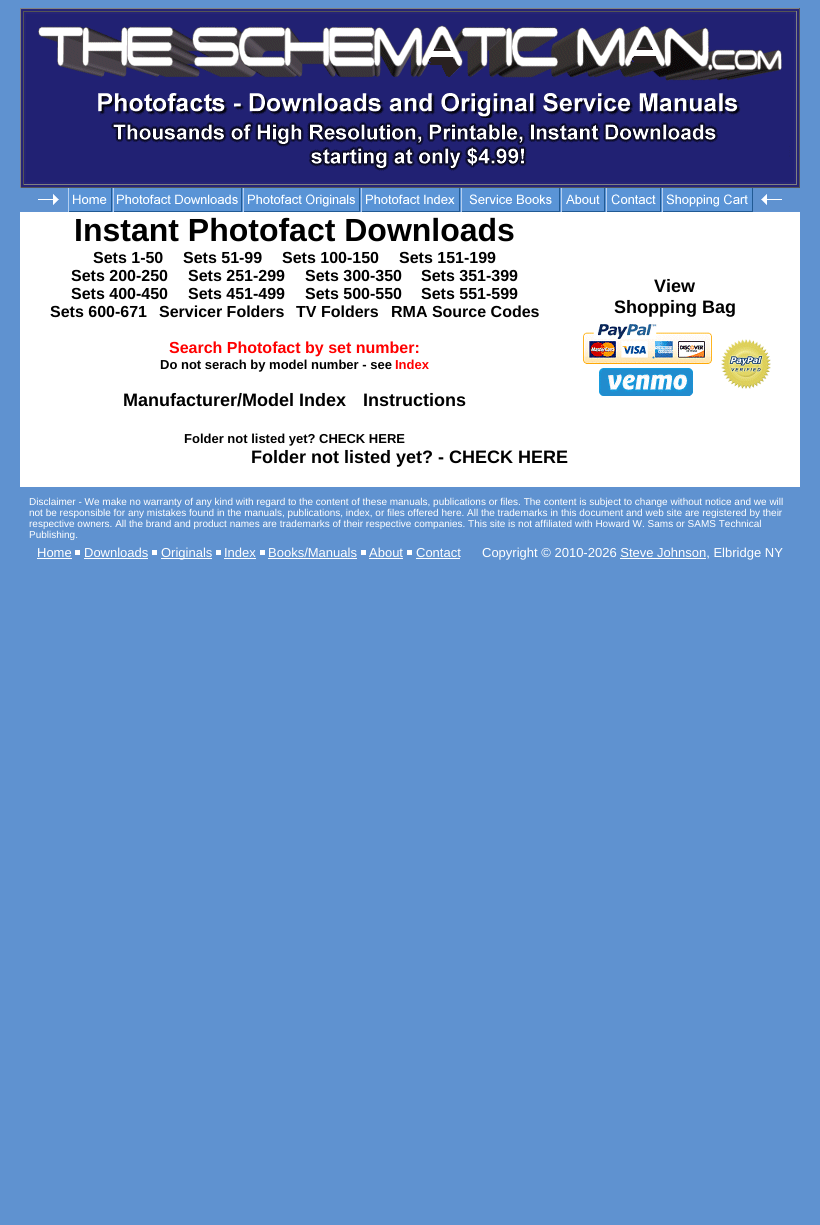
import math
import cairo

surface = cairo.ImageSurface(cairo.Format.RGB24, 820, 1225)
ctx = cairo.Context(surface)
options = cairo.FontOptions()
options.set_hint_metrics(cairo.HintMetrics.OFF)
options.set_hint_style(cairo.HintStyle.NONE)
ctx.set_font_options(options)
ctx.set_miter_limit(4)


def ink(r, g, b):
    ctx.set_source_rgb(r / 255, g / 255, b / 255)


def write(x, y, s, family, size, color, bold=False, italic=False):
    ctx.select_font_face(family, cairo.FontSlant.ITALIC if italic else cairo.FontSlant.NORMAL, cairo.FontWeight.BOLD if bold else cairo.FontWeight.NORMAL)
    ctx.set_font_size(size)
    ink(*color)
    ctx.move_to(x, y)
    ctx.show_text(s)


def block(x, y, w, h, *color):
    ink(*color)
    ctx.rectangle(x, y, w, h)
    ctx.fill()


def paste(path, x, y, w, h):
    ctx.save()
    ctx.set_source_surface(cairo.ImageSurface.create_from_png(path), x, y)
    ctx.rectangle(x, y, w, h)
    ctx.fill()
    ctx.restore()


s1 = dict(family="Liberation Sans", size=32, color=(0, 0, 0), bold=True)
s2 = dict(family="Liberation Sans", size=16, color=(0, 0, 0), bold=True)
s3 = dict(family="Liberation Sans", size=16, color=(255, 0, 0), bold=True)
s4 = dict(family="Liberation Sans", size=13, color=(0, 0, 0), bold=True)
s5 = dict(family="Liberation Sans", size=13, color=(255, 0, 0), bold=True)
s6 = dict(family="Liberation Sans", size=18, color=(0, 0, 0), bold=True)
s7 = dict(family="Liberation Sans", size=10, color=(255, 255, 255))
s8 = dict(family="Liberation Sans", size=13, color=(255, 255, 255))

ink(95, 146, 208)
ctx.paint()
block(21, 9, 778, 178, 38, 36, 119)
block(20, 8, 780, 1, 128, 128, 128)
block(799, 8, 1, 180, 85, 85, 85)
block(20, 187, 780, 1, 85, 85, 85)
block(20, 8, 1, 180, 128, 128, 128)
block(23, 11, 774, 1, 85, 85, 85)
block(796, 11, 1, 174, 128, 128, 128)
block(23, 184, 774, 1, 128, 128, 128)
block(23, 11, 1, 174, 85, 85, 85)
paste("pic1.png", 26, 14, 768, 168)
paste("pic2.png", 38, 194, 21, 11)
paste("pic3.png", 67, 188, 45, 24)
paste("pic4.png", 112, 188, 130, 24)
paste("pic5.png", 242, 188, 118, 24)
paste("pic6.png", 360, 188, 100, 24)
paste("pic7.png", 460, 188, 100, 24)
paste("pic8.png", 560, 188, 45, 24)
paste("pic9.png", 605, 188, 56, 24)
paste("pic10.png", 661, 188, 92, 24)
paste("pic11.png", 761, 194, 21, 11)
block(20, 212, 780, 275, 255, 255, 255)
write(74, 241, "Instant Photofact Downloads", **s1)
write(93, 263, "Sets 1-50", **s2)
write(183, 263, "Sets 51-99", **s2)
write(282, 263, "Sets 100-150", **s2)
write(399, 263, "Sets 151-199", **s2)
write(71, 281, "Sets 200-250", **s2)
write(188, 281, "Sets 251-299", **s2)
write(305, 281, "Sets 300-350", **s2)
write(421, 281, "Sets 351-399", **s2)
write(71, 299, "Sets 400-450", **s2)
write(188, 299, "Sets 451-499", **s2)
write(305, 299, "Sets 500-550", **s2)
write(421, 299, "Sets 551-599", **s2)
write(50, 317, "Sets 600-671", **s2)
write(159, 317, "Servicer Folders", **s2)
write(296, 317, "TV Folders", **s2)
write(391, 317, "RMA Source Codes", **s2)
write(169, 353, "Search Photofact by set number:", **s3)
write(160, 369, "Do not serach by model number - see", **s4)
write(395, 369, "Index", **s5)
write(123, 406, "Manufacturer/Model Index", **s6)
write(363, 406, "Instructions", **s6)
write(184, 443, "Folder not listed yet?", **s4)
write(319, 443, "CHECK HERE", **s4)
write(654, 292, "View", **s6)
write(614, 313, "Shopping Bag", **s6)
paste("pic12.png", 583, 324, 188, 72)
write(251, 463, "Folder not listed yet? - CHECK HERE", **s6)
write(29, 505, "Disclaimer - We make no warranty of any kind with regard to the content of these manuals, publications or files. The content is subject to change without notice and we will", **s7)
write(29, 516, "not be responsible for any mistakes found in the manuals, publications, index, or files offered here. All the trademarks in this document and web site are registered by their", **s7)
write(29, 527, "respective owners. All the brand and product names are trademarks of their respective companies. This site is not affiliated with Howard W. Sams or SAMS Technical", **s7)
write(29, 538, "Publishing.", **s7)
write(37, 557, "Home", **s8)
block(37, 558, 35, 1, 255, 255, 255)
block(75, 550, 5, 5, 255, 255, 255)
write(84, 557, "Downloads", **s8)
block(84, 558, 64, 1, 255, 255, 255)
block(152, 550, 5, 5, 255, 255, 255)
block(161, 558, 51, 1, 255, 255, 255)
write(161, 557, "Originals", **s8)
write(224, 557, "Index", **s8)
block(216, 550, 5, 5, 255, 255, 255)
block(224, 558, 32, 1, 255, 255, 255)
block(260, 550, 5, 5, 255, 255, 255)
write(268, 557, "Books/Manuals", **s8)
block(268, 558, 89, 1, 255, 255, 255)
write(369, 557, "About", **s8)
block(361, 550, 5, 5, 255, 255, 255)
block(369, 558, 34, 1, 255, 255, 255)
block(407, 550, 5, 5, 255, 255, 255)
write(416, 557, "Contact", **s8)
block(416, 558, 44, 1, 255, 255, 255)
write(482, 557, "Copyright © 2010-2026 Steve Johnson, Elbridge NY", **s8)
block(620, 558, 86, 1, 255, 255, 255)
surface.write_to_png("screenshot.png")
